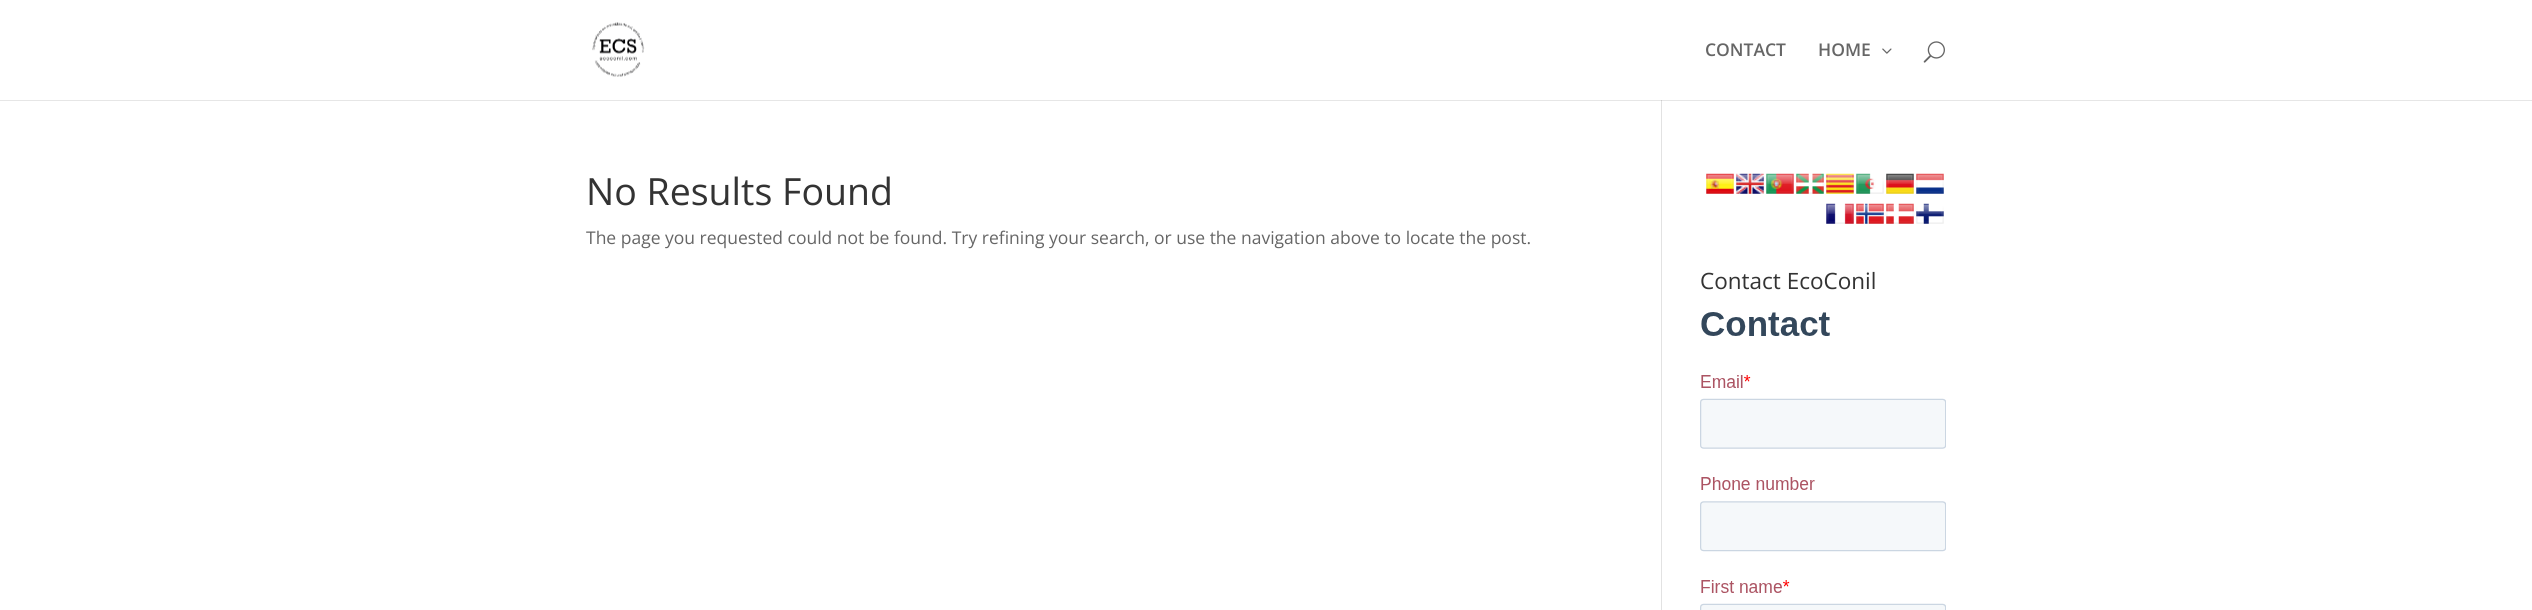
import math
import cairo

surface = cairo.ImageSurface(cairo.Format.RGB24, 2532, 610)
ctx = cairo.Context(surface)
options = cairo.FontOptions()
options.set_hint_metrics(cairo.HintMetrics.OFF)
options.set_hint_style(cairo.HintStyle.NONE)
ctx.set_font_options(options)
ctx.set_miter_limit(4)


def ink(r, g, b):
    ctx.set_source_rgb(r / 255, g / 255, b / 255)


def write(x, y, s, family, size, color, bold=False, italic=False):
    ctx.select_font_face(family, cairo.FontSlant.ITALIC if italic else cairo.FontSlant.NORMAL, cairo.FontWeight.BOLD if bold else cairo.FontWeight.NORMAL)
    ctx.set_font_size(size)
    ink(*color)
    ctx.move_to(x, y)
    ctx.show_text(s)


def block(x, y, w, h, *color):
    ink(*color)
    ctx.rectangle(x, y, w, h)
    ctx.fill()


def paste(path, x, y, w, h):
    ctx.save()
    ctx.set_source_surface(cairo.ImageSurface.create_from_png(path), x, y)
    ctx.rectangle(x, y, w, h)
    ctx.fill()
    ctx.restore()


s1 = dict(family="Open Sans SemiBold", size=17.5, color=(102, 102, 102))
s2 = dict(family="Open Sans", size=37.5, color=(51, 51, 51))
s3 = dict(family="Open Sans", size=17.5, color=(102, 102, 102))
s4 = dict(family="Open Sans", size=22.5, color=(51, 51, 51))

ink(255, 255, 255)
ctx.paint()
block(1661, 100, 1, 510, 226, 226, 226)
ctx.set_source_rgba(0, 0, 0, 0.1)
ctx.new_path()
ctx.move_to(0, 100)
ctx.line_to(0, 101)
ctx.line_to(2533, 101)
ctx.line_to(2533, 1)
ctx.line_to(2532, 1)
ctx.line_to(2532, 100)
ctx.close_path()
ctx.fill()
paste("pic1.png", 592, 22, 53, 55)
write(1705, 56, "CONTACT", **s1)
write(1818, 56, "HOME", **s1)
paste("pic2.png", 1882, 48, 10, 6)
paste("pic3.png", 1923, 41, 22, 22)
write(586, 205, "No Results Found", **s2)
write(586, 244, "The page you requested could not be found. Try refining your search, or use the navigation above to locate the post.", **s3)
paste("pic4.png", 1706, 173, 28, 21)
paste("pic5.png", 1736, 173, 28, 21)
paste("pic6.png", 1766, 173, 28, 21)
paste("pic7.png", 1796, 173, 28, 21)
paste("pic8.png", 1826, 173, 28, 21)
paste("pic9.png", 1856, 173, 28, 21)
paste("pic10.png", 1886, 173, 28, 21)
paste("pic11.png", 1916, 173, 28, 21)
paste("pic12.png", 1826, 203, 28, 21)
paste("pic13.png", 1856, 203, 28, 21)
paste("pic14.png", 1886, 203, 28, 21)
paste("pic15.png", 1916, 203, 28, 21)
write(1700, 289, "Contact EcoConil", **s4)
paste("pic16.png", 1700, 312, 246, 298)
surface.write_to_png("screenshot.png")
